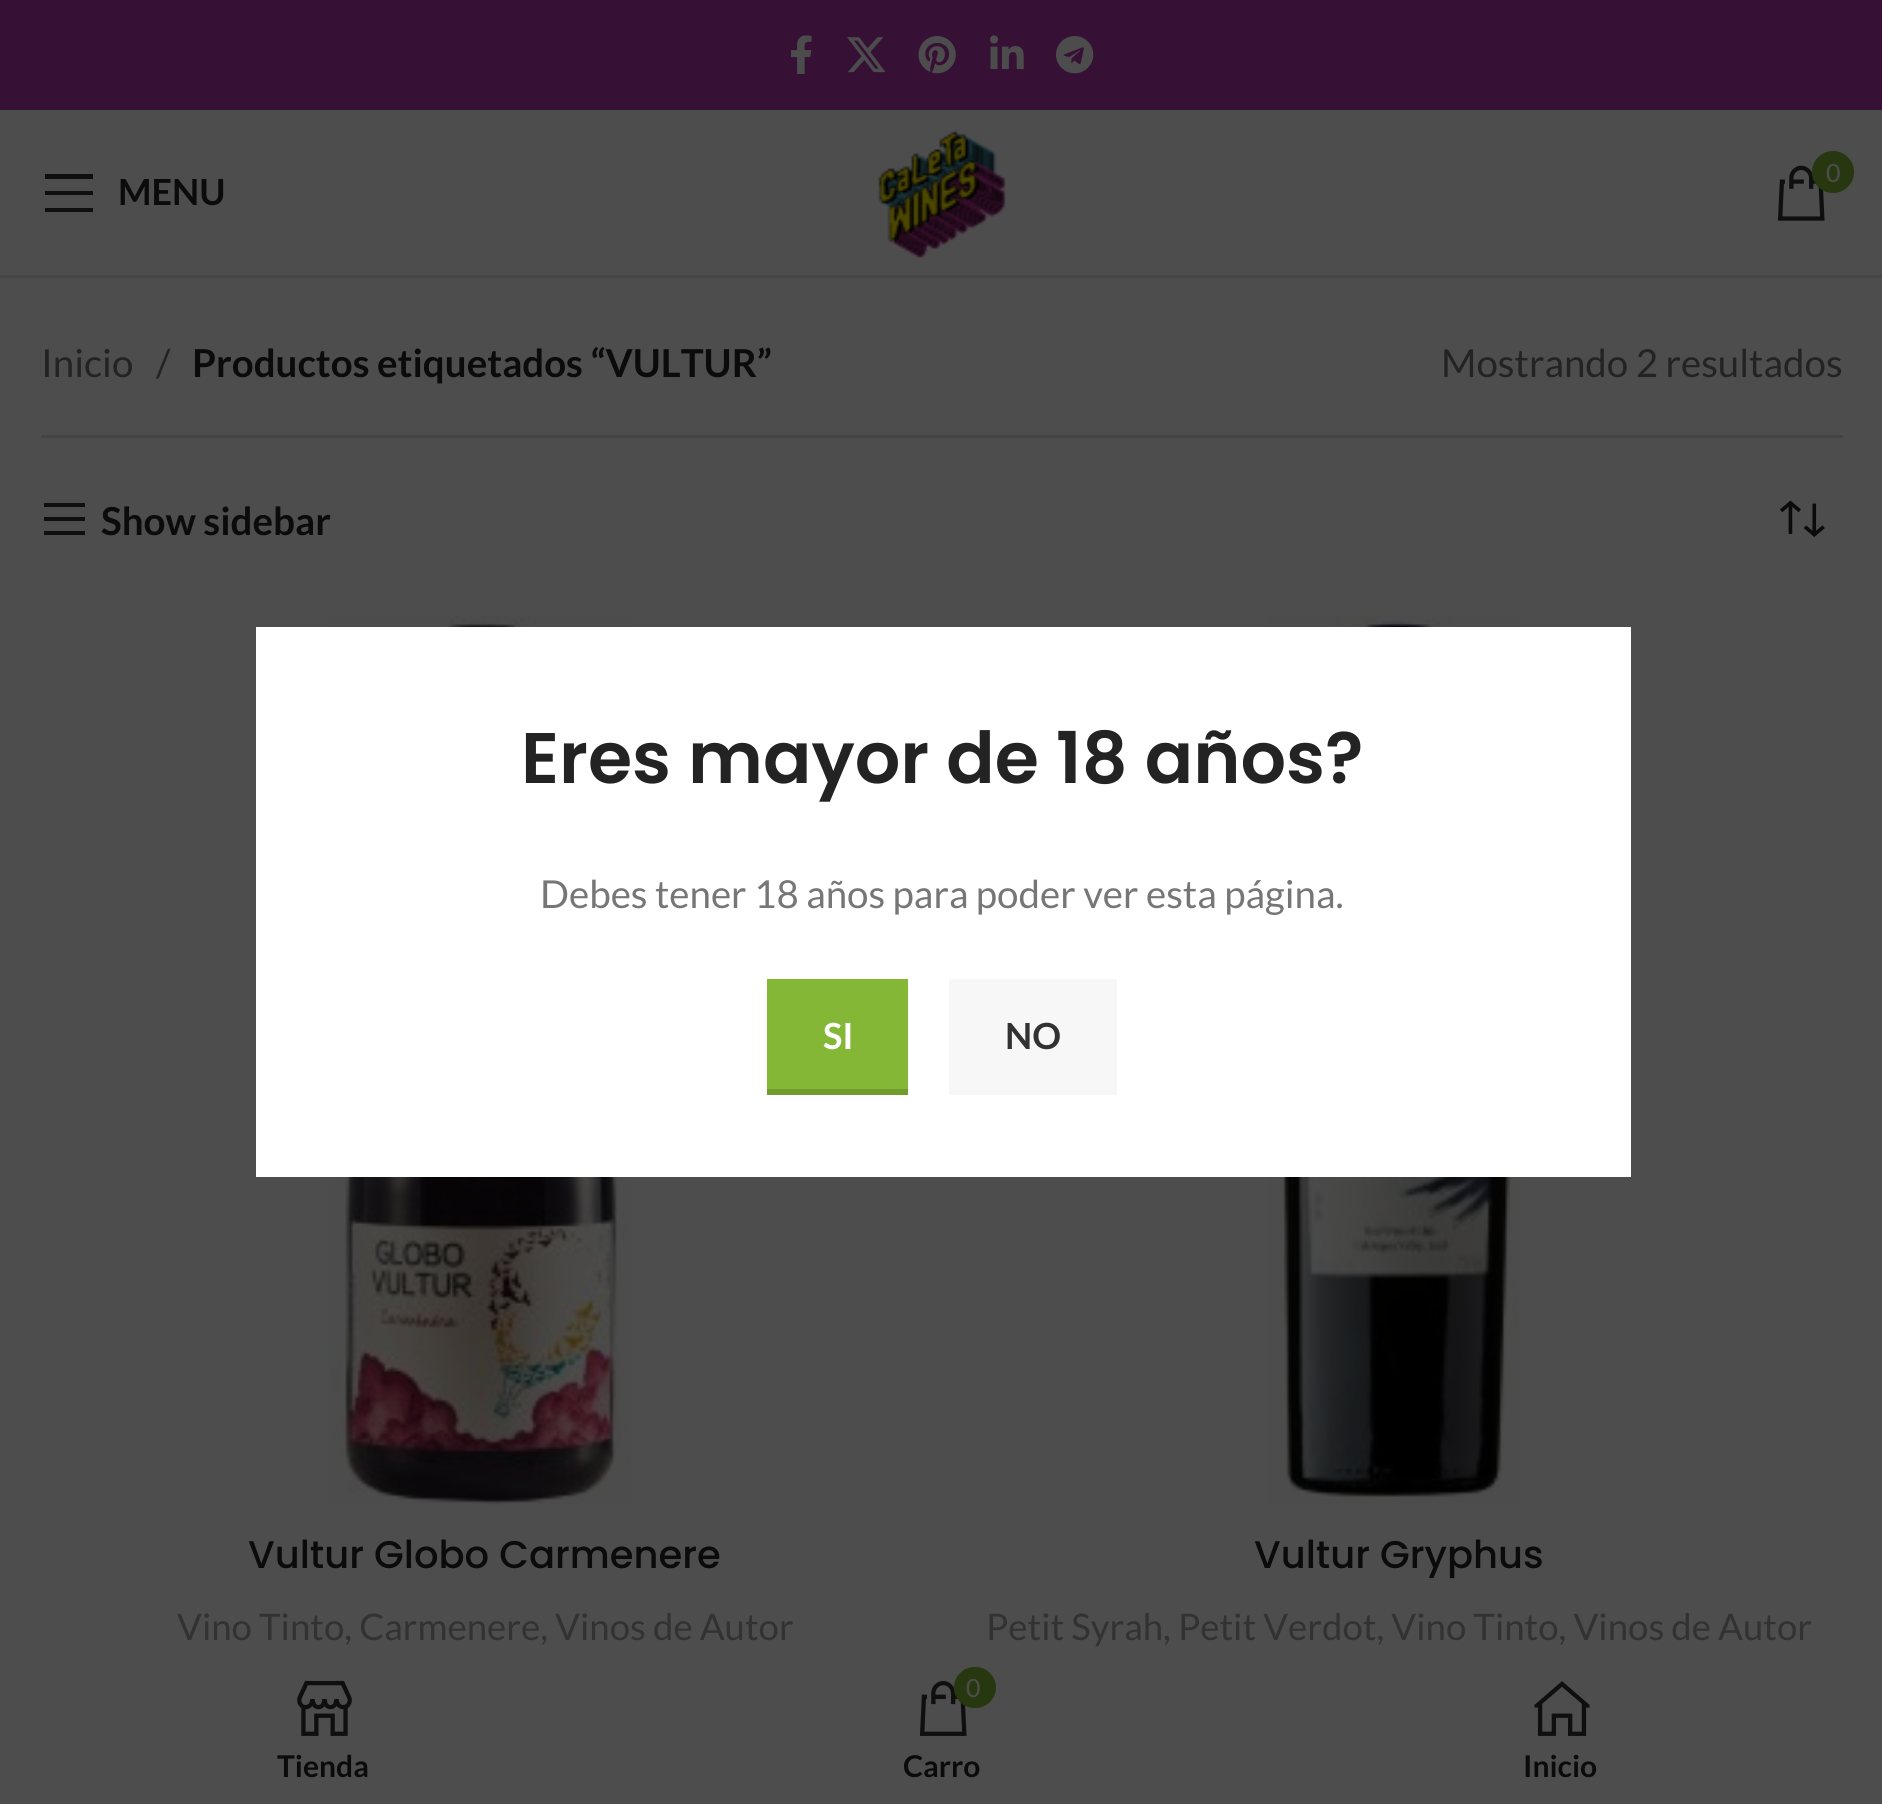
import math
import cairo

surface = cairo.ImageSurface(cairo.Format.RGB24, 1882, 1804)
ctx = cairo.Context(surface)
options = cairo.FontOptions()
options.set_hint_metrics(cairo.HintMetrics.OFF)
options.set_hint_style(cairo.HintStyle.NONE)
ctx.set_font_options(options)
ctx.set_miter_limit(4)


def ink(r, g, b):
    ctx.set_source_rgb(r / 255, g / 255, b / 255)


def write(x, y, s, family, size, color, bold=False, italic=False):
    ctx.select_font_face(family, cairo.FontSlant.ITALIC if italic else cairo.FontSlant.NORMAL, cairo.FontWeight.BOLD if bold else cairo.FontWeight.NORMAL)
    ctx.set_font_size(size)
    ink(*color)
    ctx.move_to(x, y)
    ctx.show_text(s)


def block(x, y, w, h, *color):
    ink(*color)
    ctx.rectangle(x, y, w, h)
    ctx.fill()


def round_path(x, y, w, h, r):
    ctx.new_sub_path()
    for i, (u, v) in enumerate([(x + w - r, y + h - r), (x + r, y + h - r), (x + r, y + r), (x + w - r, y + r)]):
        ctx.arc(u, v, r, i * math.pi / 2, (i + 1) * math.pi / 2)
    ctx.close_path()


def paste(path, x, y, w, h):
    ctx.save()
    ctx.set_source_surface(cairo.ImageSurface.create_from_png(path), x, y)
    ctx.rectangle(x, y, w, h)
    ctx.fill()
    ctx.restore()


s1 = dict(family="Lato", size=25, color=(77, 77, 77))
s2 = dict(family="Lato", size=36, color=(11, 11, 11), bold=True)
s3 = dict(family="Lato", size=38.5, color=(35, 35, 35))
s4 = dict(family="Lato", size=38.5, color=(11, 11, 11), bold=True)
s5 = dict(family="Poppins Medium", size=38.5, color=(11, 11, 11))
s6 = dict(family="Lato", size=36.6, color=(50, 50, 50))
s7 = dict(family="Poppins SemiBold", size=71.5, color=(35, 35, 35))
s8 = dict(family="Lato", size=38.5, color=(118, 118, 118))
s9 = dict(family="Lato", size=36, color=(255, 255, 255), bold=True)
s10 = dict(family="Lato", size=36, color=(50, 50, 50), bold=True)
s11 = dict(family="Lato", size=30, color=(11, 11, 11), bold=True)

ink(77, 77, 77)
ctx.paint()
block(0, 0, 1882, 110, 55, 16, 54)
paste("pic1.png", 791, 35, 21, 39)
paste("pic2.png", 847, 37, 39, 36)
paste("pic3.png", 918, 36, 38, 38)
paste("pic4.png", 990, 35, 34, 35)
paste("pic5.png", 1056, 36, 38, 38)
block(0, 275, 1882, 3, 69, 69, 69)
paste("pic6.png", 878, 130, 129, 129)
paste("pic7.png", 1777, 165, 48, 56)
ink(39, 55, 16)
ctx.arc(1833, 172, 21, 0, 2 * math.pi)
ctx.fill()
write(1826, 182, "0", **s1)
ink(15, 15, 15)
ctx.new_path()
ctx.move_to(45, 179)
ctx.line_to(93, 179)
ctx.line_to(93, 174)
ctx.line_to(45, 174)
ctx.close_path()
ctx.move_to(45, 195)
ctx.line_to(93, 195)
ctx.line_to(93, 191)
ctx.line_to(45, 191)
ctx.close_path()
ctx.move_to(45, 212)
ctx.line_to(93, 212)
ctx.line_to(93, 208)
ctx.line_to(45, 208)
ctx.close_path()
ctx.fill()
write(118, 205, "MENU", **s2)
block(41, 435, 1802, 3, 68, 68, 68)
write(41, 377, "Inicio", **s3)
write(156, 377, "/", **s3)
write(192, 377, "Productos etiquetados “VULTUR”", **s4)
write(1441, 377, "Mostrando 2 resultados", **s3)
ink(15, 15, 15)
ctx.new_path()
ctx.move_to(44, 507)
ctx.line_to(85, 507)
ctx.line_to(85, 503)
ctx.line_to(44, 503)
ctx.close_path()
ctx.move_to(44, 521)
ctx.line_to(85, 521)
ctx.line_to(85, 517)
ctx.line_to(44, 517)
ctx.close_path()
ctx.move_to(44, 535)
ctx.line_to(85, 535)
ctx.line_to(85, 531)
ctx.line_to(44, 531)
ctx.close_path()
ctx.fill()
write(101, 535, "Show sidebar", **s4)
paste("pic8.png", 1780, 500, 45, 37)
paste("pic9.png", 326, 616, 306, 889)
write(248, 1568, "Vultur Globo Carmenere", **s5)
write(177, 1640, "Vino Tinto, Carmenere, Vinos de Autor", **s6)
paste("pic10.png", 1267, 616, 255, 888)
write(1254, 1568, "Vultur Gryphus", **s5)
write(986, 1640, "Petit Syrah, Petit Verdot, Vino Tinto, Vinos de Autor", **s6)
block(256, 627, 1375, 550, 255, 255, 255)
write(521, 783, "Eres mayor de 18 años?", **s7)
write(540, 908, "Debes tener 18 años para poder ver esta página.", **s8)
block(767, 979, 141, 110, 131, 183, 53)
block(767, 1089, 141, 6, 111, 156, 45)
write(823, 1049, "SI", **s9)
block(949, 979, 168, 116, 247, 247, 247)
write(1005, 1049, "NO", **s10)
paste("pic11.png", 297, 1680, 55, 56)
write(277, 1777, "Tienda", **s11)
paste("pic12.png", 919, 1680, 48, 56)
ink(39, 55, 16)
round_path(954, 1667, 42, 41, 20.5)
ctx.fill()
write(966, 1697, "0", **s1)
write(903, 1777, "Carro", **s11)
paste("pic13.png", 1534, 1681, 56, 55)
write(1523, 1777, "Inicio", **s11)
surface.write_to_png("screenshot.png")
